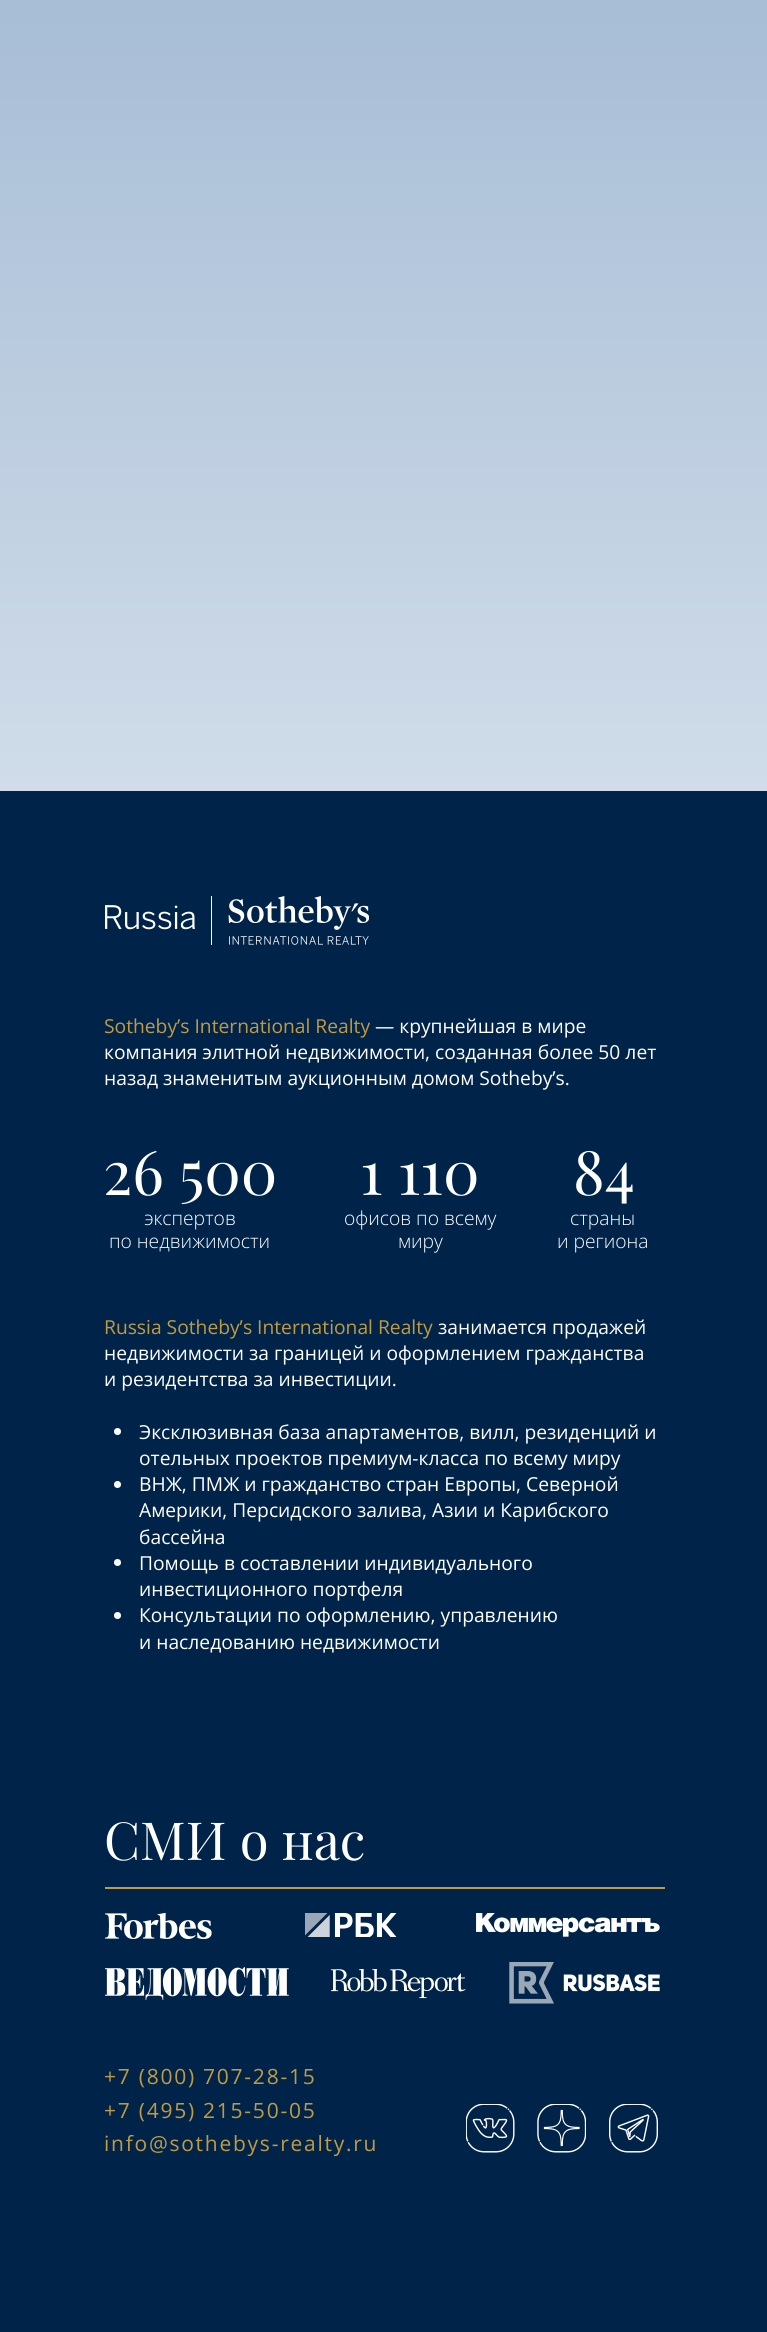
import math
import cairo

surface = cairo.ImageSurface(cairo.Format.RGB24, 767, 2332)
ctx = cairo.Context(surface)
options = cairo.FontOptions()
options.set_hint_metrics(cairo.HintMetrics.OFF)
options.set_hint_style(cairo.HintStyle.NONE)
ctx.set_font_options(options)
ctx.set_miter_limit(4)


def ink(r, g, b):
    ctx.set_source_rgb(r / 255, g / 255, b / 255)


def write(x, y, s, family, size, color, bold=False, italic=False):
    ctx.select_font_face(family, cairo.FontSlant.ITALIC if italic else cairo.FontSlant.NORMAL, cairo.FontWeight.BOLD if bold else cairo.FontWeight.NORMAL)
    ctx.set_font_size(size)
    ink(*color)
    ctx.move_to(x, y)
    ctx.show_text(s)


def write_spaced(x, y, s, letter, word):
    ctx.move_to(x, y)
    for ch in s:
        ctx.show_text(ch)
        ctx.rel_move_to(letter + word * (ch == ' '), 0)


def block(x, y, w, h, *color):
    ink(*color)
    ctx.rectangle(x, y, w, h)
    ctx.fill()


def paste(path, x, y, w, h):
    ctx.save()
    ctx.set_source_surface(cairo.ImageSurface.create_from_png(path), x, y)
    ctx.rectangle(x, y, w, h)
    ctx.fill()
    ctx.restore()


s1 = dict(family="Open Sans", size=19.25, color=(194, 155, 64))
s2 = dict(family="Open Sans", size=19.25, color=(255, 255, 255))
s3 = dict(family="Playfair Display", size=61, color=(255, 255, 255))
s4 = dict(family="Open Sans Light", size=19.25, color=(255, 255, 255))
s5 = dict(family="Playfair Display", size=52.5, color=(255, 255, 255))

ink(0, 35, 73)
ctx.paint()
gradient = cairo.LinearGradient(384, -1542, 384, 791)
gradient.add_color_stop_rgba(0, 0.345, 0.506, 0.694, 1)
gradient.add_color_stop_rgba(1, 0.816, 0.863, 0.914, 1)
ctx.set_source(gradient)
ctx.rectangle(0, 0, 767, 791)
ctx.fill()
paste("pic1.png", 105, 896, 264, 49)
write(104, 1033, "Sotheby’s International Realty", **s1)
write(375, 1033, "— крупнейшая в мире", **s2)
write(104, 1059, "компания элитной недвижимости, созданная более 50 лет", **s2)
write(104, 1085, "назад знаменитым аукционным домом Sotheby’s.", **s2)
write(103, 1195, "26 500", **s3)
write(360, 1195, "1 110", **s3)
write(573, 1195, "84", **s3)
write(144, 1225, "экспертов", **s4)
write(109, 1248, "по недвижимости", **s4)
write(344, 1225, "офисов по всему", **s4)
write(398, 1248, "миру", **s4)
write(570, 1225, "страны", **s4)
write(557, 1248, "и региона", **s4)
write(104, 1334, "Russia Sotheby’s International Realty", **s1)
write(438, 1334, "занимается продажей", **s2)
write(104, 1360, "недвижимости за границей и оформлением гражданства", **s2)
write(104, 1386, "и резидентства за инвестиции.", **s2)
ctx.new_path()
ctx.arc(117.5, 1431.5, 3.5, 0, 2 * math.pi)
ctx.fill()
write(139, 1439, "Эксклюзивная база апартаментов, вилл, резиденций и", **s2)
write(139, 1465, "отельных проектов премиум-класса по всему миру", **s2)
ctx.new_path()
ctx.arc(117.5, 1484.5, 3.5, 0, 2 * math.pi)
ctx.fill()
write(139, 1491, "ВНЖ, ПМЖ и гражданство стран Европы, Северной", **s2)
write(139, 1517, "Америки, Персидского залива, Азии и Карибского", **s2)
write(139, 1544, "бассейна", **s2)
ctx.new_path()
ctx.arc(117.5, 1562.5, 3.5, 0, 2 * math.pi)
ctx.fill()
write(139, 1570, "Помощь в составлении индивидуального", **s2)
write(139, 1596, "инвестиционного портфеля", **s2)
ctx.new_path()
ctx.arc(117.5, 1615.5, 3.5, 0, 2 * math.pi)
ctx.fill()
write(139, 1622, "Консультации по оформлению, управлению", **s2)
write(139, 1649, "и наследованию недвижимости", **s2)
write(104, 1860, "СМИ о нас", **s5)
block(105, 1887, 560, 2, 194, 155, 64)
paste("pic2.png", 105, 1913, 107, 26)
paste("pic3.png", 305, 1913, 92, 24)
paste("pic4.png", 476, 1913, 184, 24)
paste("pic5.png", 105, 1967, 184, 33)
paste("pic6.png", 331, 1969, 135, 30)
paste("pic7.png", 509, 1962, 151, 42)
ctx.select_font_face("Open Sans")
ctx.set_font_size(21)
write_spaced(104, 2084, "+7 (800) 707-28-15", 1.75, 0)
write_spaced(104, 2118, "+7 (495) 215-50-05", 1.75, 0)
write_spaced(104, 2151, "info@sothebys-realty.ru", 1.75, 0)
paste("pic8.png", 466, 2104, 49, 49)
paste("pic9.png", 537, 2104, 49, 49)
paste("pic10.png", 609, 2104, 49, 49)
surface.write_to_png("screenshot.png")
